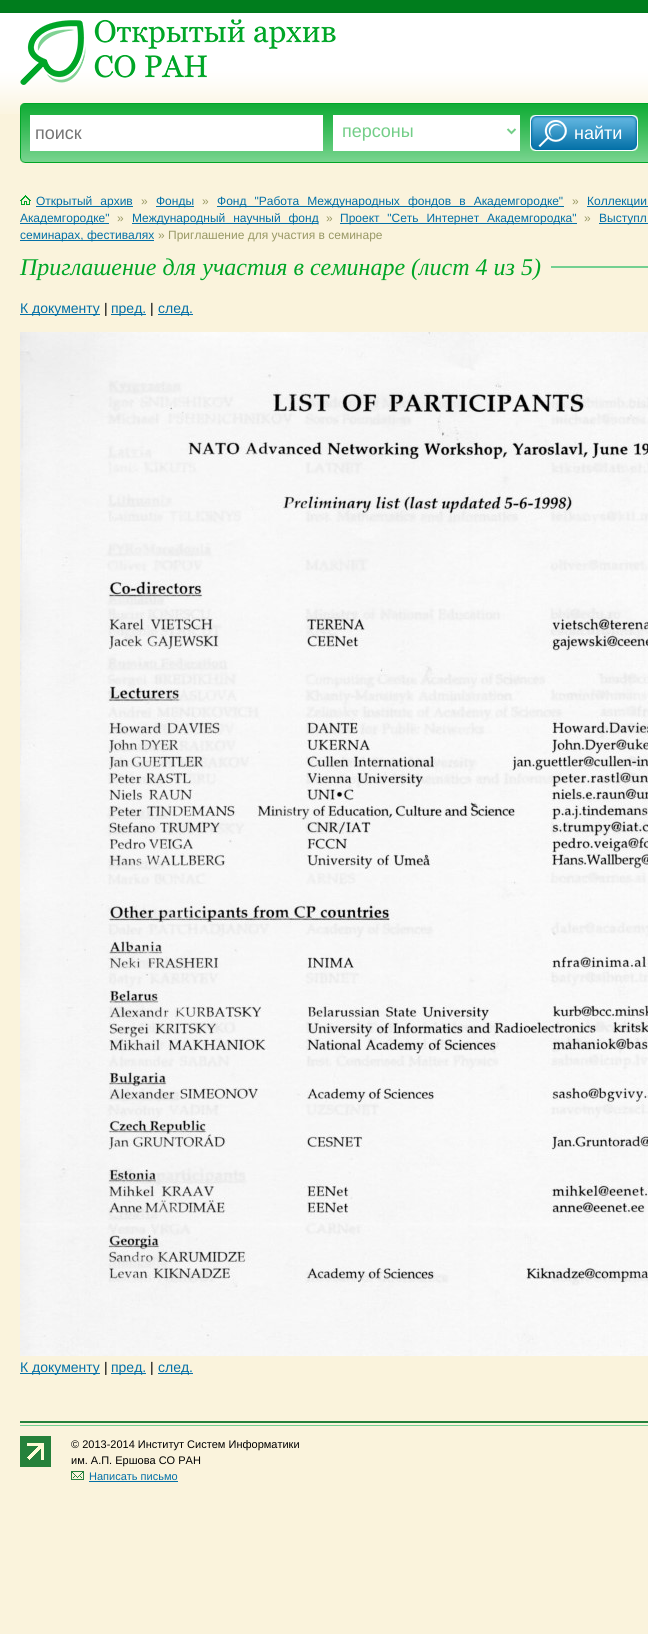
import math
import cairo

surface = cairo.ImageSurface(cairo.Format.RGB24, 648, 1634)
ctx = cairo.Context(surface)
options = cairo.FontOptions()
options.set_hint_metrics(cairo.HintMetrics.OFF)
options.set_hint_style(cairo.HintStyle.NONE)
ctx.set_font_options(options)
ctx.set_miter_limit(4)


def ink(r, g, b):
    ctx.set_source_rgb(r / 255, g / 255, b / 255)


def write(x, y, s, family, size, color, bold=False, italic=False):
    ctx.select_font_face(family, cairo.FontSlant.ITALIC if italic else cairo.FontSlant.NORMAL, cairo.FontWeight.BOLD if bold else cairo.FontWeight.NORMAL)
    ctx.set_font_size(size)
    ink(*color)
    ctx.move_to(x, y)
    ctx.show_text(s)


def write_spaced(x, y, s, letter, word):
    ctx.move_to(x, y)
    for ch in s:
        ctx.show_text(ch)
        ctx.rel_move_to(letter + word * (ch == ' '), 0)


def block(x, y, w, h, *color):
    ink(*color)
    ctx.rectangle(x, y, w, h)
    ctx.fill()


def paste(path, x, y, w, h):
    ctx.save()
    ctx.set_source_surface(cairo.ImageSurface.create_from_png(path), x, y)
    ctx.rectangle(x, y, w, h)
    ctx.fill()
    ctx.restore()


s1 = dict(family="Liberation Sans", size=18, color=(117, 117, 117))
s2 = dict(family="Liberation Sans", size=18, color=(115, 206, 136))
s3 = dict(family="Liberation Sans", size=18, color=(255, 255, 255))
s4 = dict(family="Liberation Sans", size=12, color=(153, 153, 102))
s5 = dict(family="Liberation Sans", size=12, color=(3, 112, 167))
s6 = dict(family="Liberation Serif", size=24, color=(0, 166, 39), italic=True)
s7 = dict(family="Liberation Sans", size=14, color=(3, 112, 167))
s8 = dict(family="Liberation Sans", size=14, color=(0, 0, 0))
s9 = dict(family="Liberation Sans", size=11, color=(0, 0, 0))
s10 = dict(family="Liberation Sans", size=11, color=(3, 112, 167))

ink(250, 243, 220)
ctx.paint()
paste("pic1.png", 0, 0, 648, 114)
paste("pic2.png", 20, 19, 316, 66)
paste("pic3.png", 25, 103, 623, 60)
paste("pic4.png", 20, 103, 5, 60)
block(30, 115, 293, 36, 255, 255, 255)
write(35, 139, "поиск", **s1)
block(333, 115, 187, 36, 255, 255, 255)
ctx.new_path()
ctx.move_to(507.5, 129)
ctx.line_to(511.5, 133)
ctx.line_to(515.5, 129)
ink(115, 206, 136)
ctx.stroke()
write(342, 137, "персоны", **s2)
paste("pic5.png", 530, 115, 108, 36)
write(574, 139, "найти", **s3)
paste("pic6.png", 20, 195, 11, 10)
block(36, 206, 97, 1, 3, 112, 167)
ctx.set_font_size(12)
write_spaced(36, 205, "Открытый архив", 0, 4.75)
write(141, 205, "»", **s4)
block(156, 206, 38, 1, 3, 112, 167)
write(156, 205, "Фонды", **s5)
write(202, 205, "»", **s4)
block(217, 206, 347, 1, 3, 112, 167)
write_spaced(217, 205, "Фонд \"Работа Международных фондов в Академгородке\"", 0, 4.75)
write(572, 205, "»", **s4)
block(587, 206, 61, 1, 3, 112, 167)
write_spaced(587, 205, "Коллекции", 0, 4.75)
block(20, 223, 89, 1, 3, 112, 167)
write(20, 222, "Академгородке\"", **s5)
write(117, 222, "»", **s4)
block(132, 223, 186, 1, 3, 112, 167)
write_spaced(132, 222, "Международный научный фонд", 0, 4.5)
write(326, 222, "»", **s4)
block(340, 223, 237, 1, 3, 112, 167)
write_spaced(340, 222, "Проект \"Сеть Интернет Академгородка\"", 0, 4.5)
write(584, 222, "»", **s4)
block(599, 223, 49, 1, 3, 112, 167)
write_spaced(599, 222, "Выступл", 0, 4.5)
block(20, 240, 134, 1, 3, 112, 167)
write(20, 239, "семинарах, фестивалях", **s5)
write(158, 239, "» Приглашение для участия в семинаре", **s4)
block(551, 266, 97, 2, 116, 208, 145)
write(20, 275, "Приглашение для участия в семинаре (лист 4 из 5)", **s6)
block(20, 314, 80, 1, 3, 112, 167)
write(20, 313, "К документу", **s7)
write(104, 313, "|", **s8)
block(111, 314, 35, 1, 3, 112, 167)
write(111, 313, "пред.", **s7)
write(150, 313, "|", **s8)
block(158, 314, 35, 1, 3, 112, 167)
write(158, 313, "след.", **s7)
paste("pic7.png", 20, 332, 628, 1024)
block(20, 1373, 80, 1, 3, 112, 167)
write(20, 1372, "К документу", **s7)
write(104, 1372, "|", **s8)
block(111, 1373, 35, 1, 3, 112, 167)
write(111, 1372, "пред.", **s7)
write(150, 1372, "|", **s8)
block(158, 1373, 35, 1, 3, 112, 167)
write(158, 1372, "след.", **s7)
paste("pic8.png", 20, 1421, 628, 5)
paste("pic9.png", 20, 1436, 31, 31)
write(71, 1448, "© 2013-2014 Институт Систем Информатики", **s9)
write(71, 1464, "им. А.П. Ершова СО РАН", **s9)
paste("pic10.png", 71, 1471, 13, 9)
write(89, 1480, "Написать письмо", **s10)
block(89, 1481, 89, 1, 3, 112, 167)
surface.write_to_png("screenshot.png")
